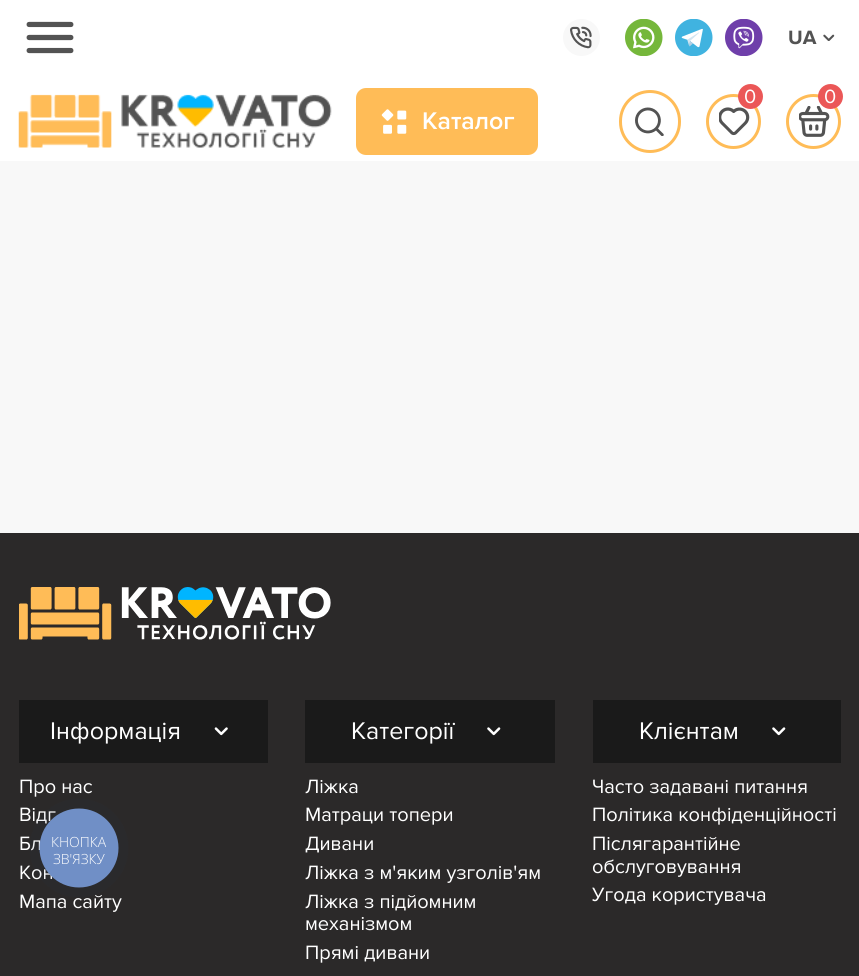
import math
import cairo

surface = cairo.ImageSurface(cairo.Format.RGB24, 859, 976)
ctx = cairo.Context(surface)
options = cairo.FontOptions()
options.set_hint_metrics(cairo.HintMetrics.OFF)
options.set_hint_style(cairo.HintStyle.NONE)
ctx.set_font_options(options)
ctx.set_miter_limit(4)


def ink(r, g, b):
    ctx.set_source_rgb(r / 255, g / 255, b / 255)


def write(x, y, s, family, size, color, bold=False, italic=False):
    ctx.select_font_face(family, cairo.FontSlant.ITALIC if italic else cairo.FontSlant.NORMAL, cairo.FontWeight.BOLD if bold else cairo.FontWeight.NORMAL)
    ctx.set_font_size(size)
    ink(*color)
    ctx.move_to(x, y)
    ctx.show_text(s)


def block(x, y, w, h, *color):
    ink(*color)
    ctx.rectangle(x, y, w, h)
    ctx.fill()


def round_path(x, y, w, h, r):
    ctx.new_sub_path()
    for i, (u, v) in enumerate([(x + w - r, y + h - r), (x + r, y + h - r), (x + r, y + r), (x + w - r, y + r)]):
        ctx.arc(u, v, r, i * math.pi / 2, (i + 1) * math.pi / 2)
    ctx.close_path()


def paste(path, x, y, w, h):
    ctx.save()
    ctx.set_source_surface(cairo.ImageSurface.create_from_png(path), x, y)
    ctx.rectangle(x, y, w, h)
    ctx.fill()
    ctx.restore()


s1 = dict(family="Proxima Nova", size=20, color=(83, 83, 83), bold=True)
s2 = dict(family="Proxima Nova SemiBold", size=25, color=(255, 255, 255))
s3 = dict(family="Proxima Nova", size=20, color=(255, 255, 255))
s4 = dict(family="Proxima Nova", size=25, color=(255, 255, 255))
s5 = dict(family="Open Sans Light", size=14, color=(255, 255, 255))

ink(248, 248, 248)
ctx.paint()
block(0, 0, 859, 161, 255, 255, 255)
paste("pic1.png", 26, 21, 48, 33)
ink(248, 248, 248)
ctx.arc(581.5, 37.5, 18.5, 0, 2 * math.pi)
ctx.fill()
paste("pic2.png", 570, 26, 22, 23)
paste("pic3.png", 625, 19, 38, 37)
paste("pic4.png", 675, 19, 38, 37)
paste("pic5.png", 725, 19, 38, 37)
write(788, 44, "UA", **s1)
paste("pic6.png", 823, 34, 12, 7)
paste("pic7.png", 18, 94, 314, 54)
ink(255, 188, 87)
round_path(356, 88, 182, 67, 10)
ctx.fill()
paste("pic8.png", 381, 109, 26, 25)
write(422, 129, "Каталог", **s2)
round_path(620.5, 91.5, 59, 60, 29.5)
ink(255, 188, 87)
ctx.set_line_width(3)
ctx.stroke()
paste("pic9.png", 635, 107, 29, 29)
ctx.arc(733.5, 121.5, 26, 0, 2 * math.pi)
ctx.stroke()
paste("pic10.png", 719, 107, 31, 29)
ink(235, 87, 87)
ctx.arc(750.5, 96.5, 12.5, 0, 2 * math.pi)
ctx.fill()
write(744, 103, "0", **s3)
ctx.new_path()
ctx.arc(813.5, 121.5, 26, 0, 2 * math.pi)
ink(255, 188, 87)
ctx.stroke()
paste("pic11.png", 799, 106, 31, 31)
ink(235, 87, 87)
ctx.arc(830.5, 96.5, 12.5, 0, 2 * math.pi)
ctx.fill()
write(824, 103, "0", **s3)
block(0, 533, 859, 443, 43, 41, 41)
paste("pic12.png", 19, 587, 312, 53)
block(19, 700, 249, 63, 26, 26, 26)
write(50, 739, "Інформація", **s4)
paste("pic13.png", 214, 727, 14, 9)
write(19, 793, "Про нас", **s3)
write(19, 821, "Відг", **s3)
write(19, 850, "Бл", **s3)
write(19, 879, "Кон", **s3)
write(19, 908, "Мапа сайту", **s3)
block(305, 700, 250, 63, 26, 26, 26)
write(351, 739, "Категорії", **s4)
paste("pic14.png", 487, 727, 14, 9)
write(305, 793, "Ліжка", **s3)
write(305, 821, "Матраци топери", **s3)
write(305, 850, "Дивани", **s3)
write(305, 879, "Ліжка з м'яким узголів'ям", **s3)
write(305, 908, "Ліжка з підйомним", **s3)
write(305, 930, "механізмом", **s3)
write(305, 959, "Прямі дивани", **s3)
block(593, 700, 248, 63, 26, 26, 26)
write(639, 739, "Клієнтам", **s4)
paste("pic14.png", 772, 727, 14, 9)
write(592, 793, "Часто задавані питання", **s3)
write(592, 821, "Політика конфіденційності", **s3)
write(592, 850, "Післягарантійне", **s3)
write(592, 873, "обслуговування", **s3)
write(592, 901, "Угода користувача", **s3)
ctx.set_source_rgba(0.165, 0.251, 0.365, 0.06)
ctx.new_path()
ctx.arc(79, 848, 49.5, 0, 2 * math.pi)
ctx.fill()
ink(112, 143, 198)
ctx.arc(79, 848, 39.5, 0, 2 * math.pi)
ctx.fill()
write(51, 847, "КНОПКА", **s5)
write(53, 864, "ЗВ'ЯЗКУ", **s5)
surface.write_to_png("screenshot.png")
